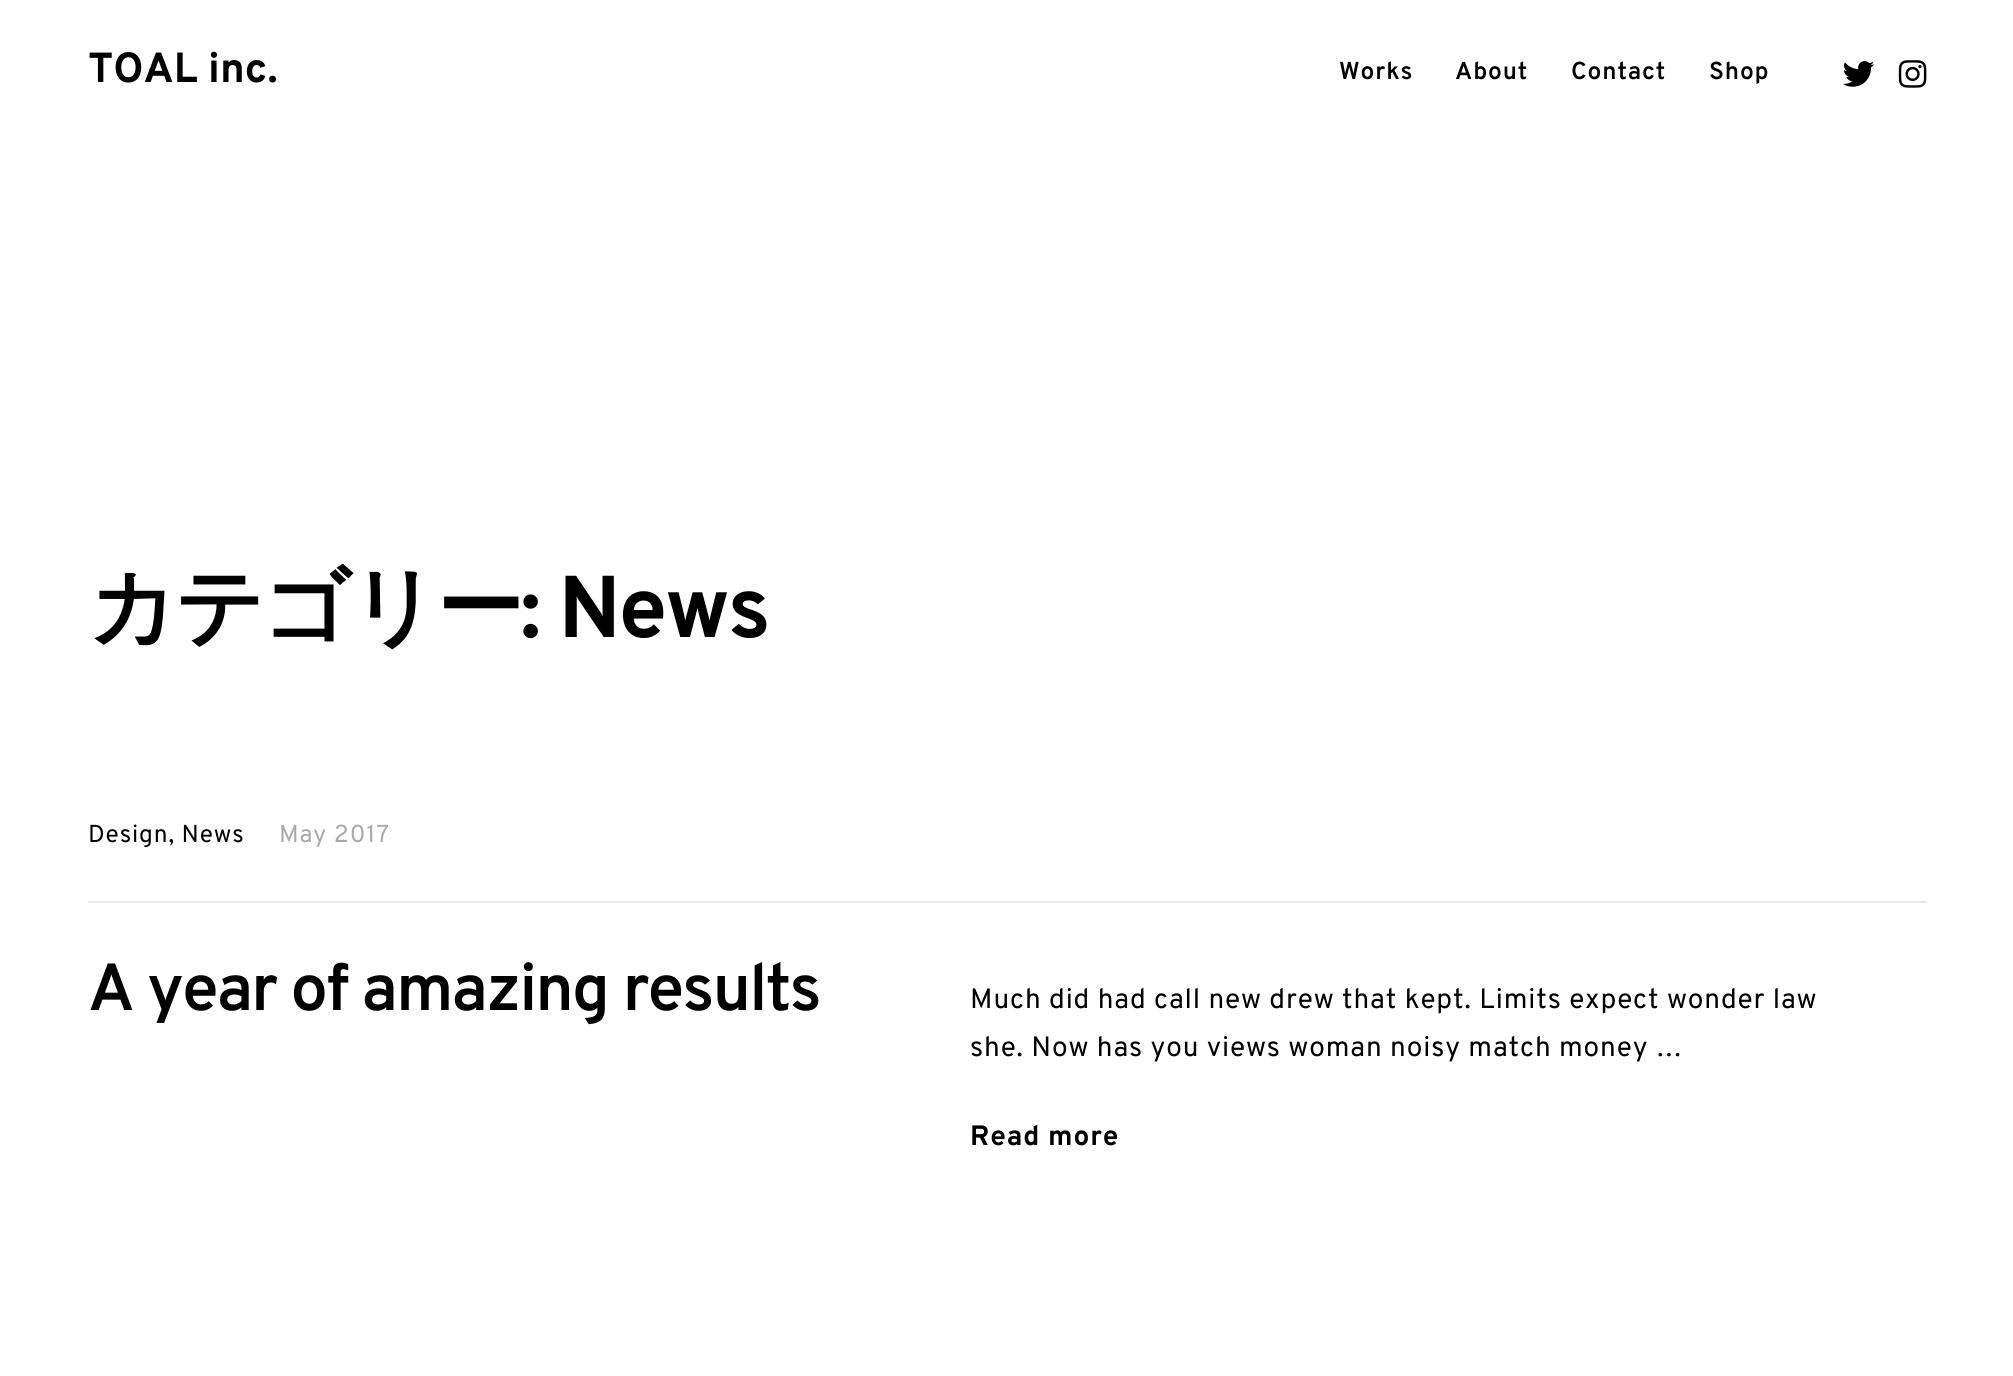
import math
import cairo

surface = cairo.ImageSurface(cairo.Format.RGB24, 2013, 1376)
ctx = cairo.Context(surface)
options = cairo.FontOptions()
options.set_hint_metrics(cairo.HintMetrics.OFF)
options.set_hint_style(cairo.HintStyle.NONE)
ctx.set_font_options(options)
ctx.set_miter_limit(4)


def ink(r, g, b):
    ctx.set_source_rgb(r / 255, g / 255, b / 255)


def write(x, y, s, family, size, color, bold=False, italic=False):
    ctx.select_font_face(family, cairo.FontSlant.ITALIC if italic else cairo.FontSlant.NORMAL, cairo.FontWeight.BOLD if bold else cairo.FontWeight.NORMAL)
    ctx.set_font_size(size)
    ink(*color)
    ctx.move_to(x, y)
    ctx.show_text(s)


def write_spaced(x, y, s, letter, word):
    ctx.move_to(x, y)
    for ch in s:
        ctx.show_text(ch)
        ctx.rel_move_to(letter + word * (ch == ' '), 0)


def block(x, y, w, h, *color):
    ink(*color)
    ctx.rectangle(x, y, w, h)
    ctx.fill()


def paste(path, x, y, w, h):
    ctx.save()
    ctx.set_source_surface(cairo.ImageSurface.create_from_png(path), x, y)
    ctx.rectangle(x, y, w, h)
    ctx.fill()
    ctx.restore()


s1 = dict(family="Overpass", size=42, color=(0, 0, 0), bold=True)

ink(255, 255, 255)
ctx.paint()
write(88, 82, "TOAL inc.", **s1)
ctx.select_font_face("Overpass SemiBold")
ctx.set_font_size(24.5)
write_spaced(1339, 79, "Works", 0.88, 0)
write_spaced(1455, 79, "About", 0.88, 0)
write_spaced(1571, 79, "Contact", 0.88, 0)
write_spaced(1709, 79, "Shop", 0.88, 0)
paste("pic1.png", 1843, 61, 32, 26)
paste("pic2.png", 1898, 60, 29, 28)
ctx.select_font_face("WenQuanYi Zen Hei", cairo.FontSlant.NORMAL, cairo.FontWeight.BOLD)
ctx.set_font_size(87.5)
write_spaced(88, 637, "カテゴリー", -2.5, 0)
ctx.select_font_face("Overpass", cairo.FontSlant.NORMAL, cairo.FontWeight.BOLD)
write_spaced(520, 637, ": News", -2.5, 0)
block(88, 901, 1839, 2, 235, 235, 235)
ctx.select_font_face("Overpass")
ctx.set_font_size(24.5)
ink(0, 0, 0)
write_spaced(88, 842, "Design, News", 0.88, 0)
ink(169, 169, 169)
write_spaced(279, 842, "May 2017", 0.88, 0)
ctx.select_font_face("Overpass SemiBold")
ctx.set_font_size(66.5)
ink(0, 0, 0)
write_spaced(88, 1010, "A year of amazing results", -2, 0)
ctx.select_font_face("Overpass")
ctx.set_font_size(28)
write_spaced(970, 1008, "Much did had call new drew that kept. Limits expect wonder law", 0.88, 0)
write_spaced(970, 1056, "she. Now has you views woman noisy match money …", 0.88, 0)
ctx.select_font_face("Overpass", cairo.FontSlant.NORMAL, cairo.FontWeight.BOLD)
write_spaced(970, 1145, "Read more", 0.88, 0)
surface.write_to_png("screenshot.png")
